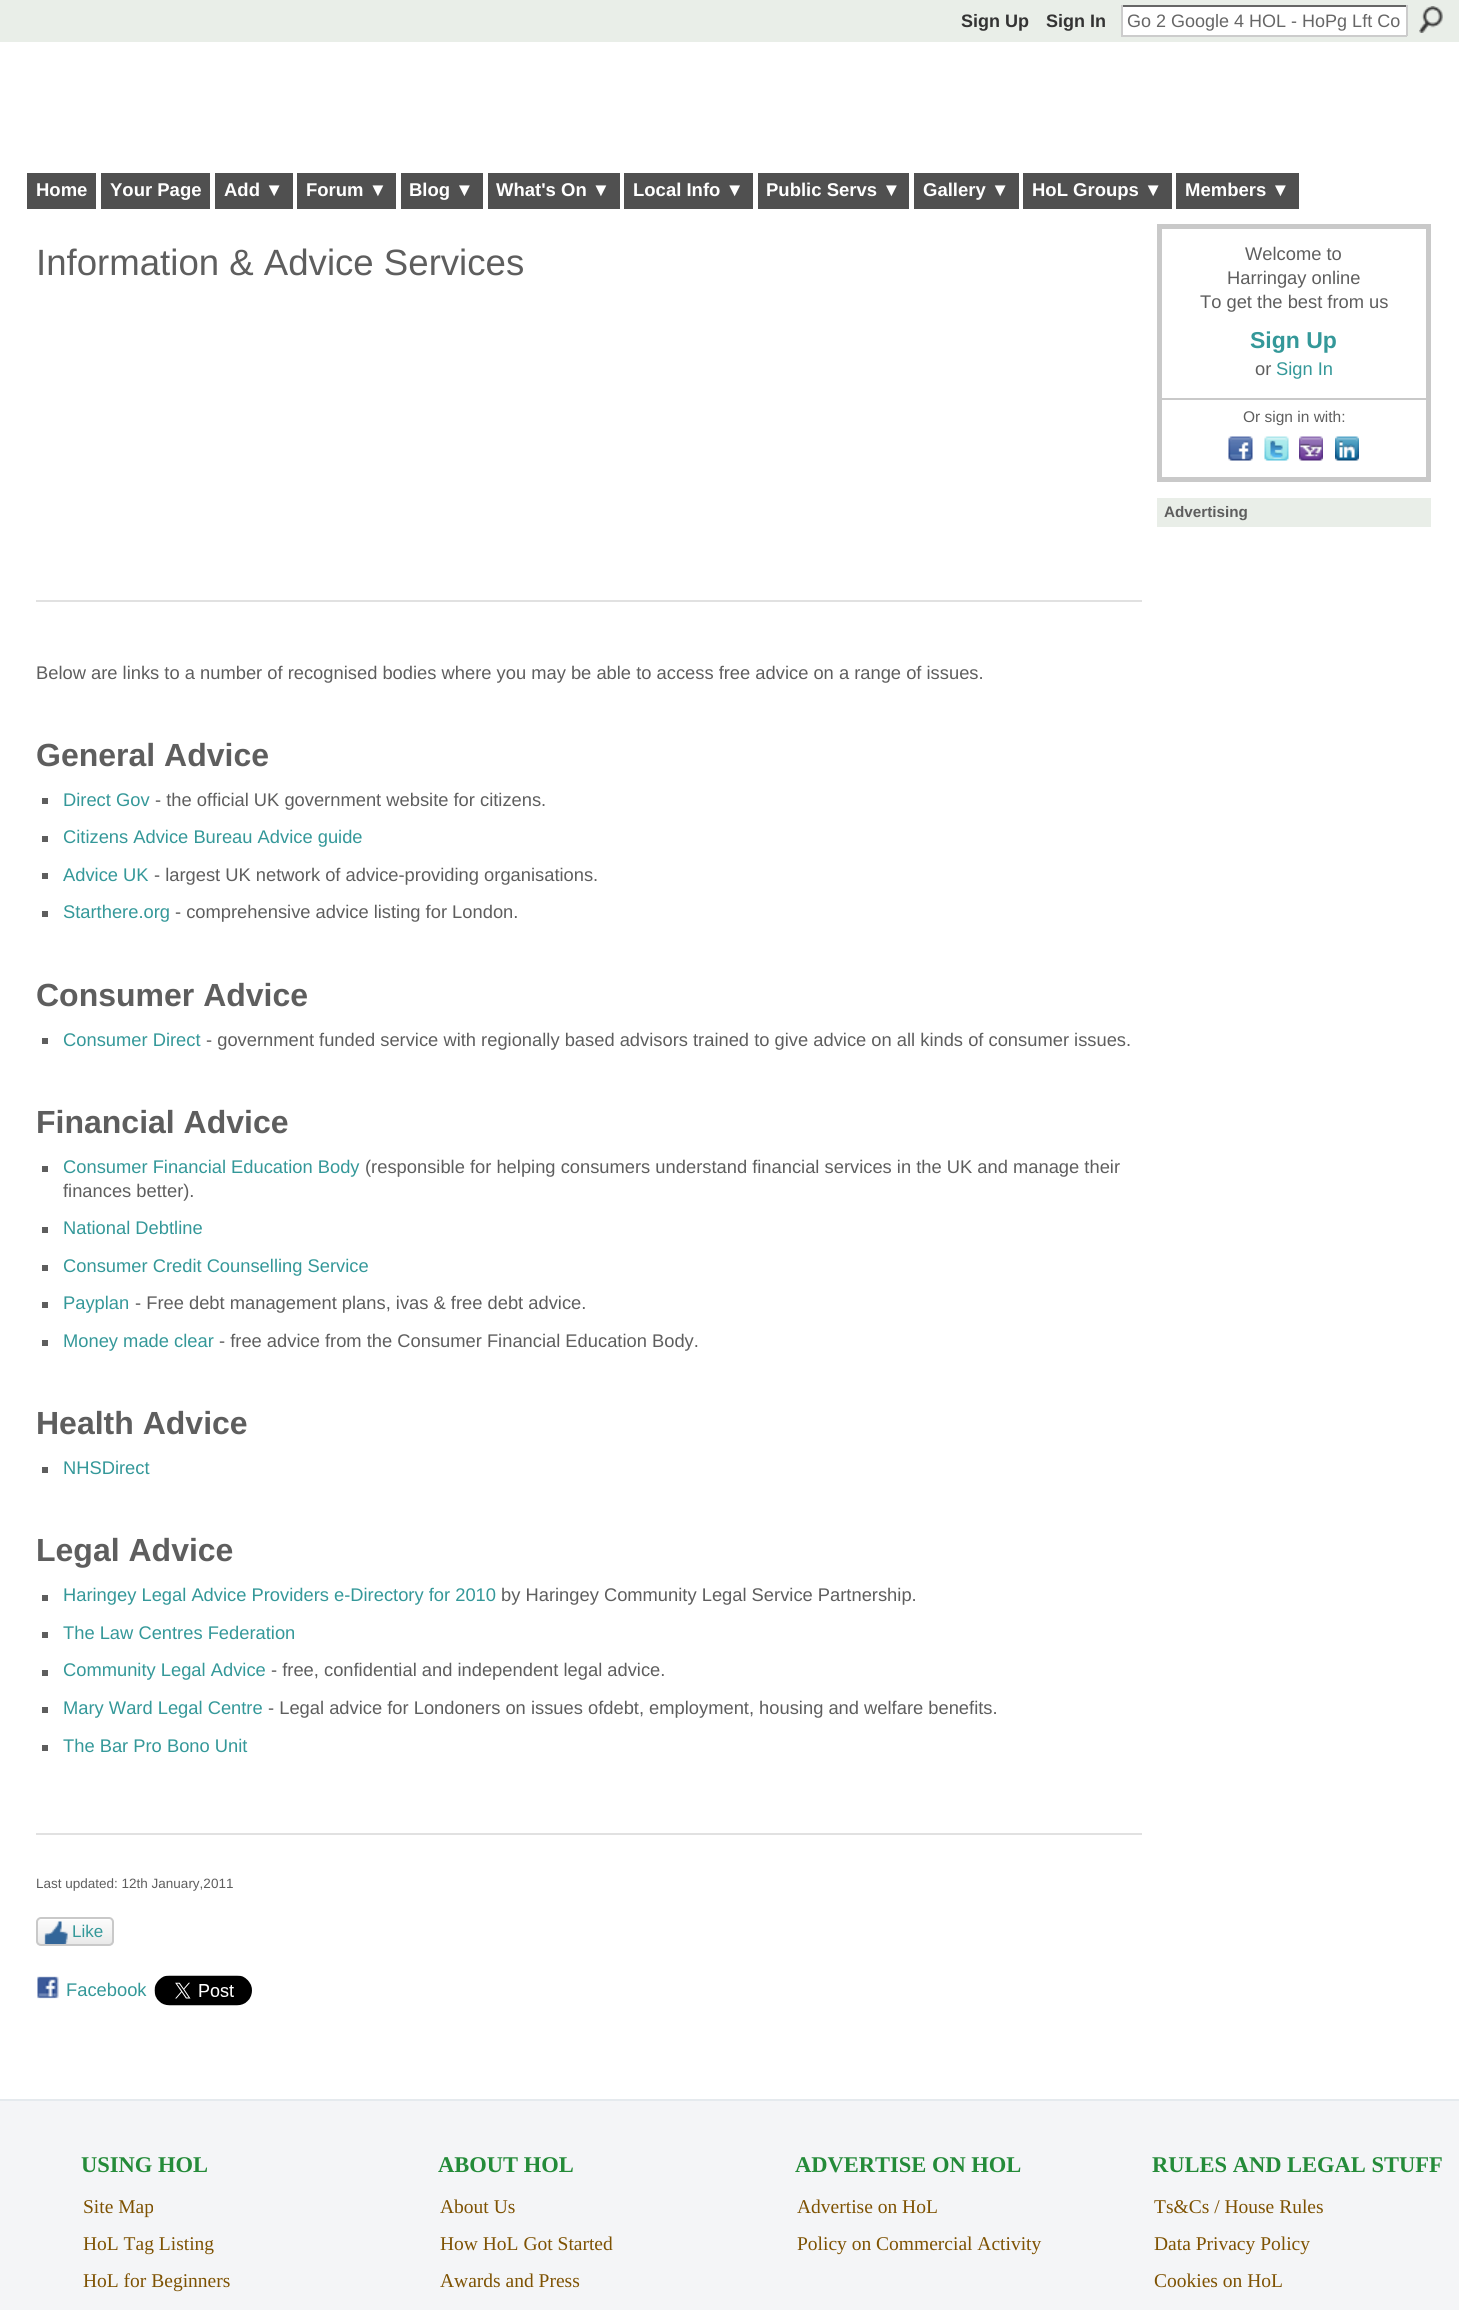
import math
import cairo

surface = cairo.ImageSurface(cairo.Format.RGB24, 1459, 2310)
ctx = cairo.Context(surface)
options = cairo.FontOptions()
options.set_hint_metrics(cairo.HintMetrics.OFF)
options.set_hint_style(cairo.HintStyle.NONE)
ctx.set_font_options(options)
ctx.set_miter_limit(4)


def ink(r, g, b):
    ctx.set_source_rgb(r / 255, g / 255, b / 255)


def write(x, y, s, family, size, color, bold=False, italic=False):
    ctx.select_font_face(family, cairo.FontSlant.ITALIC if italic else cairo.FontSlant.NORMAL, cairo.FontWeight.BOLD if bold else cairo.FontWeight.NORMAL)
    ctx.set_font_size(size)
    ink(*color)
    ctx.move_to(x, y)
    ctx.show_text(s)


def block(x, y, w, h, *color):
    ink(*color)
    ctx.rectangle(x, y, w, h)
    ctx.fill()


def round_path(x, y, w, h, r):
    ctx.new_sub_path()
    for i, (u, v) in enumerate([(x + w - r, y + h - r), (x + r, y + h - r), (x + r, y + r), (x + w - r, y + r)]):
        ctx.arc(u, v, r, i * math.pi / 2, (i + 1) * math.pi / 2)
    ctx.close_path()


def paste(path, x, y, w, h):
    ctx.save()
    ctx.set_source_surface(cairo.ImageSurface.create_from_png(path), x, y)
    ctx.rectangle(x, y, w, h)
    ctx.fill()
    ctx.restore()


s1 = dict(family="Liberation Sans", size=18, color=(51, 51, 51), bold=True)
s2 = dict(family="Liberation Sans", size=18, color=(102, 102, 102))
s3 = dict(family="Liberation Sans", size=18.5, color=(255, 255, 255), bold=True)
s4 = dict(family="Liberation Sans", size=36.6, color=(94, 94, 94))
s5 = dict(family="Liberation Sans", size=18.33, color=(94, 94, 94))
s6 = dict(family="Liberation Sans", size=32, color=(94, 94, 94), bold=True)
s7 = dict(family="Liberation Sans", size=18.33, color=(52, 152, 153))
s8 = dict(family="Liberation Sans", size=13.5, color=(94, 94, 94))
s9 = dict(family="Liberation Sans", size=17, color=(52, 152, 153))
s10 = dict(family="Liberation Sans", size=23, color=(52, 152, 153), bold=True)
s11 = dict(family="Liberation Sans", size=15.5, color=(94, 94, 94))
s12 = dict(family="Liberation Sans", size=15.25, color=(94, 94, 94), bold=True)
s13 = dict(family="Liberation Serif", size=22.5, color=(36, 139, 57), bold=True)
s14 = dict(family="Liberation Serif", size=19.5, color=(126, 82, 2))

ink(255, 255, 255)
ctx.paint()
block(0, 0, 1459, 42, 233, 238, 232)
write(961, 27, "Sign Up", **s1)
write(1046, 27, "Sign In", **s1)
block(1123, 7, 283, 28, 255, 255, 255)
block(1121, 5, 286, 2, 102, 102, 102)
block(1406, 5, 2, 31, 204, 204, 204)
block(1121, 35, 286, 2, 204, 204, 204)
block(1121, 5, 2, 31, 204, 204, 204)
write(1127, 27, "Go 2 Google 4 HOL - HoPg Lft Co", **s2)
paste("pic1.png", 1419, 6, 24, 27)
block(27, 173, 69, 36, 80, 80, 80)
write(36, 196, "Home", **s3)
block(101, 173, 109, 36, 80, 80, 80)
write(110, 196, "Your Page", **s3)
block(215, 173, 78, 36, 80, 80, 80)
write(224, 196, "Add ▼", **s3)
block(297, 173, 99, 36, 80, 80, 80)
write(306, 196, "Forum ▼", **s3)
block(401, 173, 82, 36, 80, 80, 80)
write(409, 196, "Blog ▼", **s3)
block(488, 173, 132, 36, 80, 80, 80)
write(496, 196, "What's On ▼", **s3)
block(624, 173, 129, 36, 80, 80, 80)
write(633, 196, "Local Info ▼", **s3)
block(758, 173, 151, 36, 80, 80, 80)
write(766, 196, "Public Servs ▼", **s3)
block(914, 173, 105, 36, 80, 80, 80)
write(923, 196, "Gallery ▼", **s3)
block(1023, 173, 149, 36, 80, 80, 80)
write(1032, 196, "HoL Groups ▼", **s3)
block(1176, 173, 123, 36, 80, 80, 80)
write(1185, 196, "Members ▼", **s3)
write(36, 275, "Information & Advice Services", **s4)
block(36, 600, 1106, 2, 225, 225, 225)
write(36, 679, "Below are links to a number of recognised bodies where you may be able to access free advice on a range of issues.", **s5)
write(36, 766, "General Advice", **s6)
block(42, 798, 6, 6, 94, 94, 94)
write(63, 806, "Direct Gov", **s7)
write(155, 806, "- the official UK government website for citizens.", **s5)
block(42, 836, 6, 6, 94, 94, 94)
write(63, 843, "Citizens Advice Bureau Advice guide", **s7)
block(42, 873, 6, 6, 94, 94, 94)
write(63, 881, "Advice UK", **s7)
write(154, 881, "- largest UK network of advice-providing organisations.", **s5)
block(42, 911, 6, 6, 94, 94, 94)
write(63, 918, "Starthere.org", **s7)
write(175, 918, "- comprehensive advice listing for London.", **s5)
write(36, 1006, "Consumer Advice", **s6)
block(42, 1038, 6, 6, 94, 94, 94)
write(63, 1046, "Consumer Direct", **s7)
write(206, 1046, "- government funded service with regionally based advisors trained to give advice on all kinds of consumer issues.", **s5)
write(36, 1133, "Financial Advice", **s6)
block(42, 1166, 6, 6, 94, 94, 94)
write(63, 1173, "Consumer Financial Education Body", **s7)
write(365, 1173, "(responsible for helping consumers understand financial services in the UK and manage their", **s5)
write(63, 1197, "finances better).", **s5)
block(42, 1227, 6, 6, 94, 94, 94)
write(63, 1234, "National Debtline", **s7)
block(42, 1265, 6, 6, 94, 94, 94)
write(63, 1272, "Consumer Credit Counselling Service", **s7)
block(42, 1302, 6, 6, 94, 94, 94)
write(63, 1309, "Payplan", **s7)
write(135, 1309, "- Free debt management plans, ivas & free debt advice.", **s5)
block(42, 1340, 6, 6, 94, 94, 94)
write(63, 1347, "Money made clear", **s7)
write(219, 1347, "- free advice from the Consumer Financial Education Body.", **s5)
write(36, 1434, "Health Advice", **s6)
block(42, 1467, 6, 6, 94, 94, 94)
write(63, 1474, "NHSDirect", **s7)
write(36, 1561, "Legal Advice", **s6)
block(42, 1595, 6, 6, 94, 94, 94)
write(63, 1601, "Haringey Legal Advice Providers e-Directory for 2010", **s7)
write(501, 1601, "by Haringey Community Legal Service Partnership.", **s5)
block(42, 1632, 6, 6, 94, 94, 94)
write(63, 1639, "The Law Centres Federation", **s7)
block(42, 1670, 6, 6, 94, 94, 94)
write(63, 1676, "Community Legal Advice", **s7)
write(271, 1676, "- free, confidential and independent legal advice.", **s5)
block(42, 1707, 6, 6, 94, 94, 94)
write(63, 1714, "Mary Ward Legal Centre", **s7)
write(268, 1714, "- Legal advice for Londoners on issues ofdebt, employment, housing and welfare benefits.", **s5)
block(42, 1745, 6, 6, 94, 94, 94)
write(63, 1752, "The Bar Pro Bono Unit", **s7)
block(36, 1833, 1106, 2, 225, 225, 225)
write(36, 1888, "Last updated: 12th January,2011", **s8)
paste("pic2.png", 36, 1920, 78, 26)
round_path(37, 1918, 76, 27, 4)
ink(201, 201, 201)
ctx.stroke()
paste("pic3.png", 44, 1921, 24, 23)
write(72, 1937, "Like", **s9)
paste("pic4.png", 37, 1976, 22, 23)
write(66, 1996, "Facebook", **s7)
paste("pic5.png", 154, 1975, 98, 31)
ctx.rectangle(1159.5, 226.5, 269, 253)
ink(201, 201, 201)
ctx.set_line_width(5)
ctx.stroke()
write(1245, 260, "Welcome to", **s5)
write(1227, 284, "Harringay online", **s5)
write(1200, 308, "To get the best from us", **s5)
write(1250, 348, "Sign Up", **s10)
write(1255, 375, "or", **s5)
write(1276, 375, "Sign In", **s7)
block(1161, 398, 266, 2, 201, 201, 201)
write(1243, 422, "Or sign in with:", **s11)
paste("pic6.png", 1228, 436, 25, 25)
paste("pic7.png", 1264, 436, 25, 25)
paste("pic8.png", 1299, 436, 24, 25)
paste("pic9.png", 1335, 436, 24, 25)
block(1157, 498, 274, 29, 233, 238, 232)
write(1164, 517, "Advertising", **s12)
block(0, 2101, 1459, 209, 244, 245, 247)
block(0, 2099, 1459, 2, 229, 234, 238)
write(81, 2172, "USING HOL", **s13)
write(83, 2213, "Site Map", **s14)
write(83, 2250, "HoL Tag Listing", **s14)
write(83, 2287, "HoL for Beginners", **s14)
write(438, 2172, "ABOUT HOL", **s13)
write(440, 2213, "About Us", **s14)
write(440, 2250, "How HoL Got Started", **s14)
write(440, 2287, "Awards and Press", **s14)
write(795, 2172, "ADVERTISE ON HOL", **s13)
write(797, 2213, "Advertise on HoL", **s14)
write(797, 2250, "Policy on Commercial Activity", **s14)
write(1152, 2172, "RULES AND LEGAL STUFF", **s13)
write(1154, 2213, "Ts&Cs / House Rules", **s14)
write(1154, 2250, "Data Privacy Policy", **s14)
write(1154, 2287, "Cookies on HoL", **s14)
surface.write_to_png("screenshot.png")
